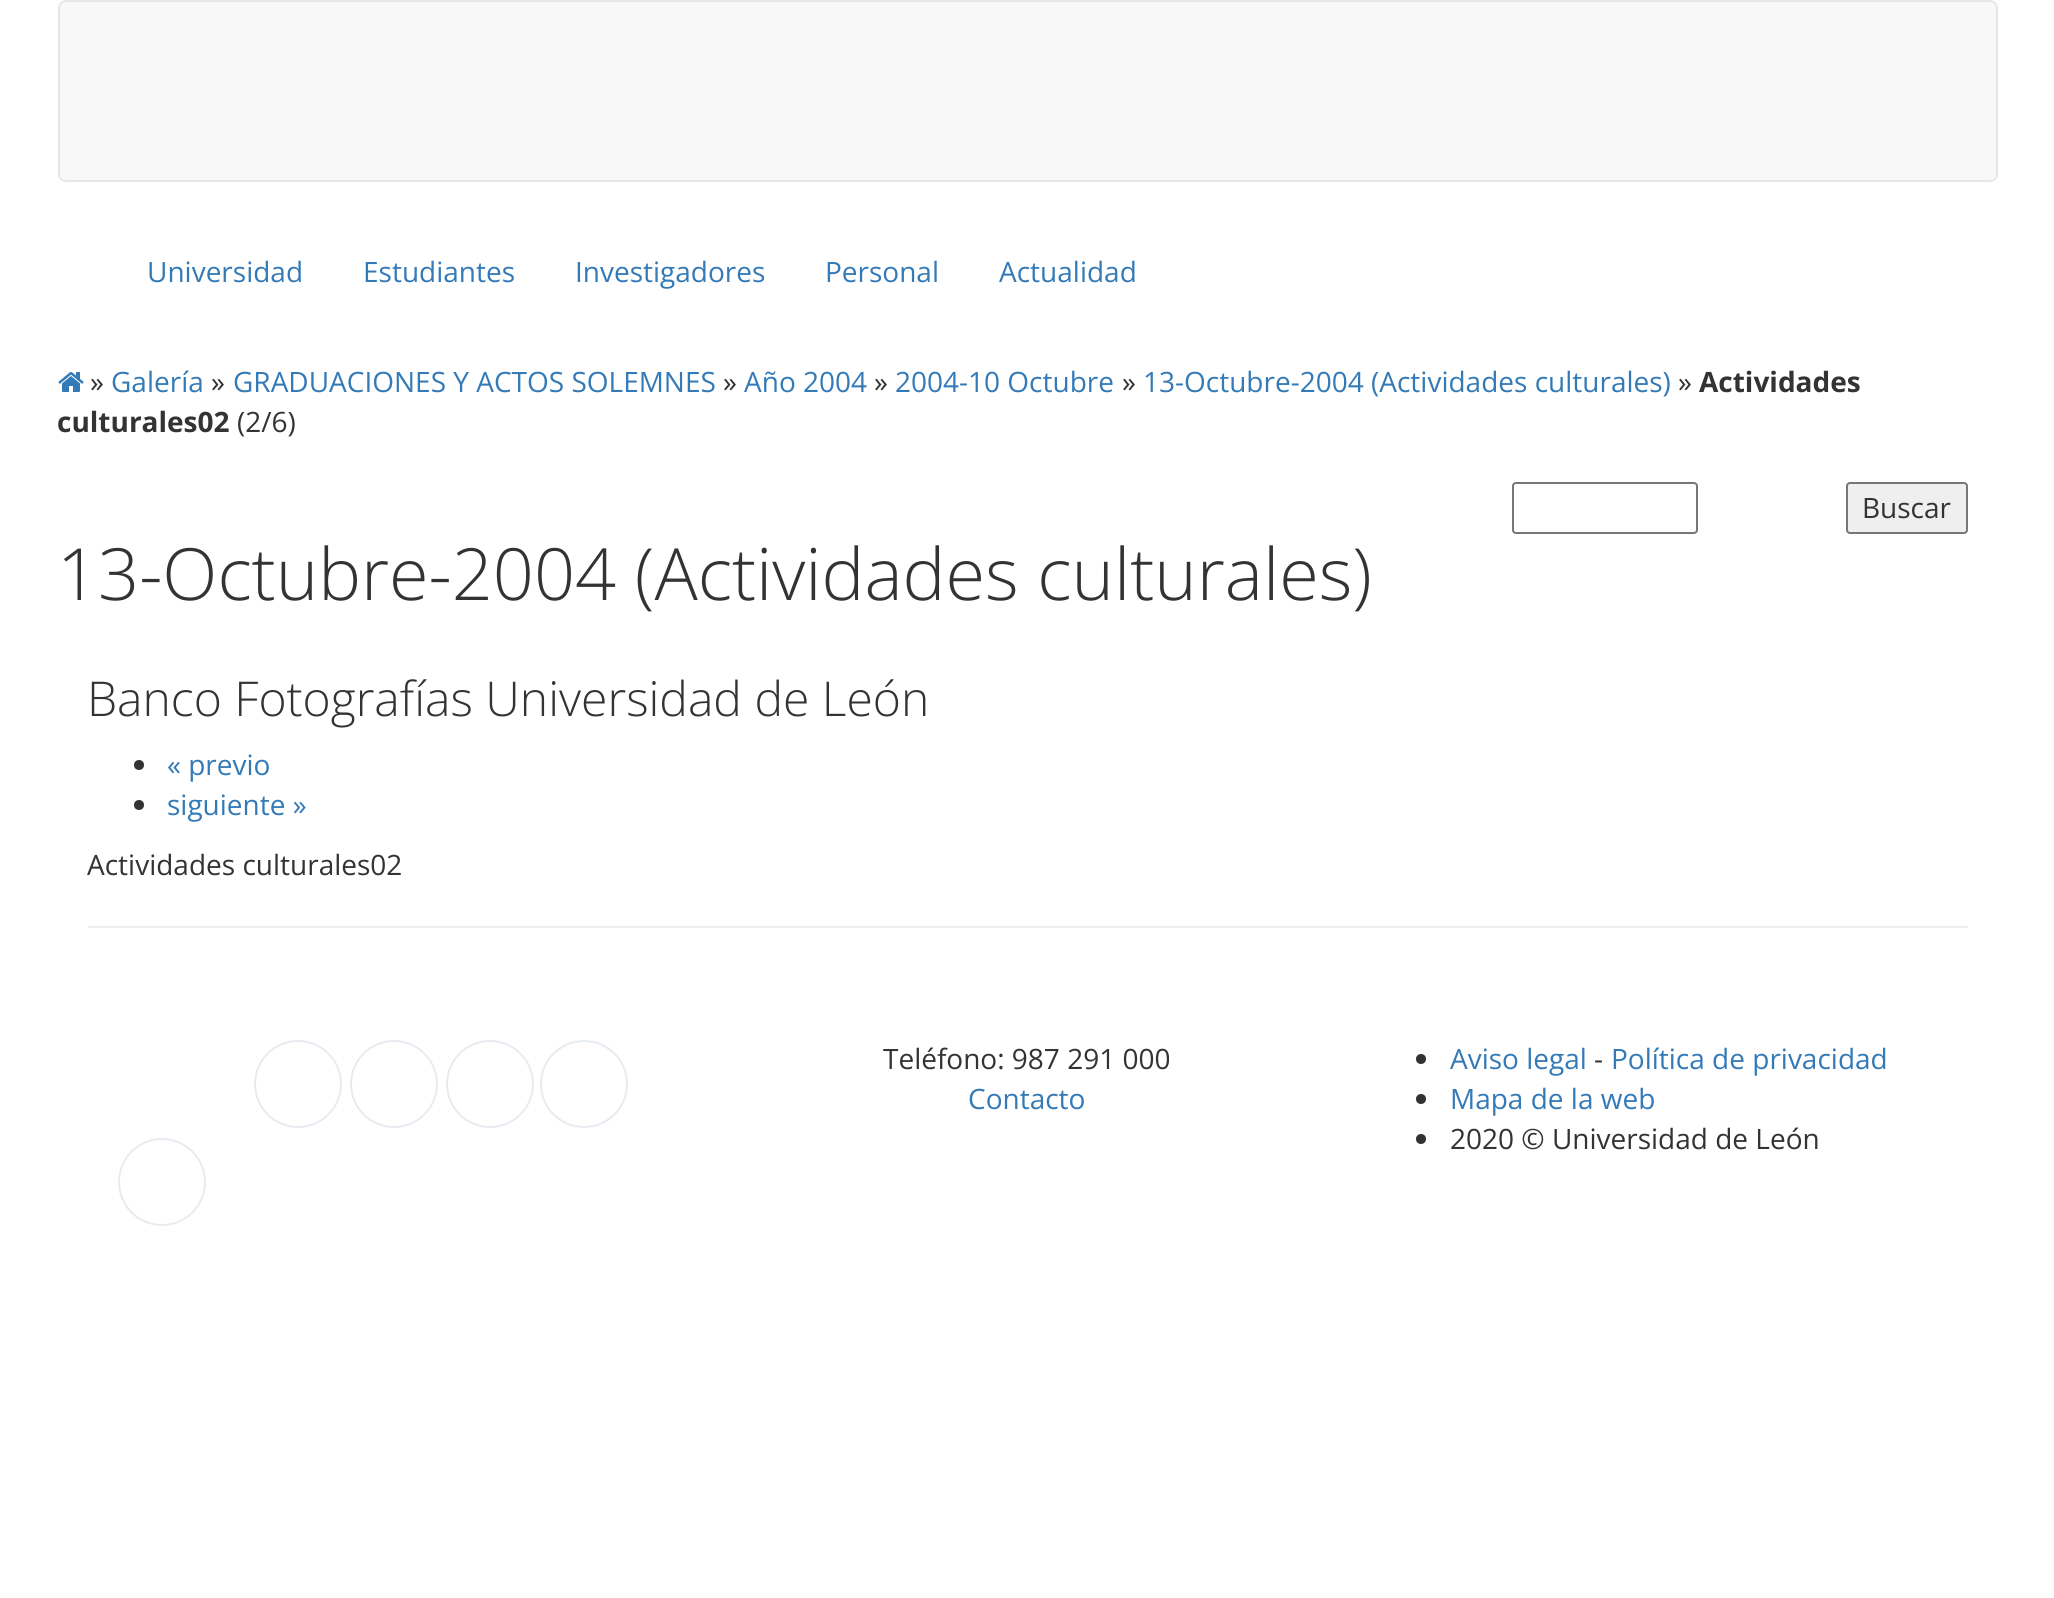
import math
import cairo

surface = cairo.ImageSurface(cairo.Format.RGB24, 2054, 1598)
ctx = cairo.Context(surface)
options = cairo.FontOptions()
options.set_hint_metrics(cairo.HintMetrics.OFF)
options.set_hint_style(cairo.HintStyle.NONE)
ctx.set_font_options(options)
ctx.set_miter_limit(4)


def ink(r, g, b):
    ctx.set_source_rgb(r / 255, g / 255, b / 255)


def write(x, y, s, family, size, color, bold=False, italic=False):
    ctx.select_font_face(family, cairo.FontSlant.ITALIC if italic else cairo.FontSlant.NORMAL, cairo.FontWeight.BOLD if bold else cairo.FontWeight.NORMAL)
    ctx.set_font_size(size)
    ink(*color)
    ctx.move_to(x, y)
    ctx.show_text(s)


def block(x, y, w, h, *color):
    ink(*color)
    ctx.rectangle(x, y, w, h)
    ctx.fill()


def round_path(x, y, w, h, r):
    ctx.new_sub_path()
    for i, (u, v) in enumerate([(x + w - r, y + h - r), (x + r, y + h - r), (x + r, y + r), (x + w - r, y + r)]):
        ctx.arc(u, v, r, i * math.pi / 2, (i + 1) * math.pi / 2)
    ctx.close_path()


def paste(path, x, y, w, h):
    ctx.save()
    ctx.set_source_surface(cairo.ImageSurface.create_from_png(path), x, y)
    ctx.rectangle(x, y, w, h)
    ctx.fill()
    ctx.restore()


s1 = dict(family="Open Sans", size=28, color=(51, 122, 183))
s2 = dict(family="Open Sans", size=28, color=(51, 51, 51))
s3 = dict(family="Open Sans", size=28, color=(51, 51, 51), bold=True)
s4 = dict(family="Open Sans Light", size=72, color=(51, 51, 51))
s5 = dict(family="Open Sans Light", size=48, color=(51, 51, 51))

ink(255, 255, 255)
ctx.paint()
ink(248, 248, 248)
round_path(59, 1, 1938, 180, 7)
ctx.fill_preserve()
ink(231, 231, 231)
ctx.stroke()
write(147, 282, "Universidad", **s1)
write(363, 282, "Estudiantes", **s1)
write(575, 282, "Investigadores", **s1)
write(825, 282, "Personal", **s1)
write(999, 282, "Actualidad", **s1)
paste("pic1.png", 58, 372, 26, 20)
write(90, 392, "»", **s2)
write(111, 392, "Galería", **s1)
write(211, 392, "»", **s2)
write(233, 392, "GRADUACIONES Y ACTOS SOLEMNES", **s1)
write(723, 392, "»", **s2)
write(744, 392, "Año 2004", **s1)
write(874, 392, "»", **s2)
write(895, 392, "2004-10 Octubre", **s1)
write(1122, 392, "»", **s2)
write(1143, 392, "13-Octubre-2004 (Actividades culturales)", **s1)
write(1678, 392, "»", **s2)
write(1699, 392, "Actividades", **s3)
write(57, 432, "culturales02", **s3)
write(237, 432, "(2/6)", **s2)
round_path(1513, 483, 184, 50, 3)
ink(118, 118, 118)
ctx.stroke()
ink(239, 239, 239)
round_path(1847, 483, 120, 50, 3)
ctx.fill_preserve()
ink(118, 118, 118)
ctx.stroke()
write(1862, 518, "Buscar", **s2)
write(57, 600, "13-Octubre-2004 (Actividades culturales)", **s4)
write(87, 716, "Banco Fotografías Universidad de León", **s5)
ctx.new_path()
ctx.arc(139, 765, 5, 0, 2 * math.pi)
ctx.fill()
write(167, 775, "« previo", **s1)
ink(51, 51, 51)
ctx.new_path()
ctx.arc(139, 805, 5, 0, 2 * math.pi)
ctx.fill()
write(167, 815, "siguiente »", **s1)
write(87, 875, "Actividades culturales02", **s2)
block(88, 926, 1880, 2, 238, 238, 238)
ctx.new_path()
ctx.arc(298, 1084, 43, 0, 2 * math.pi)
ink(231, 236, 241)
ctx.stroke()
ctx.arc(394, 1084, 43, 0, 2 * math.pi)
ctx.stroke()
ctx.arc(490, 1084, 43, 0, 2 * math.pi)
ctx.stroke()
ctx.arc(584, 1084, 43, 0, 2 * math.pi)
ctx.stroke()
ctx.arc(162, 1182, 43, 0, 2 * math.pi)
ctx.stroke()
write(883, 1069, "Teléfono: 987 291 000", **s2)
write(968, 1109, "Contacto", **s1)
ink(51, 51, 51)
ctx.new_path()
ctx.arc(1421, 1059, 5, 0, 2 * math.pi)
ctx.fill()
write(1450, 1069, "Aviso legal", **s1)
write(1594, 1069, "-", **s2)
write(1611, 1069, "Política de privacidad", **s1)
ink(51, 51, 51)
ctx.new_path()
ctx.arc(1421, 1099, 5, 0, 2 * math.pi)
ctx.fill()
write(1450, 1109, "Mapa de la web", **s1)
ink(51, 51, 51)
ctx.new_path()
ctx.arc(1421, 1139, 5, 0, 2 * math.pi)
ctx.fill()
write(1450, 1149, "2020 © Universidad de León", **s2)
surface.write_to_png("screenshot.png")
